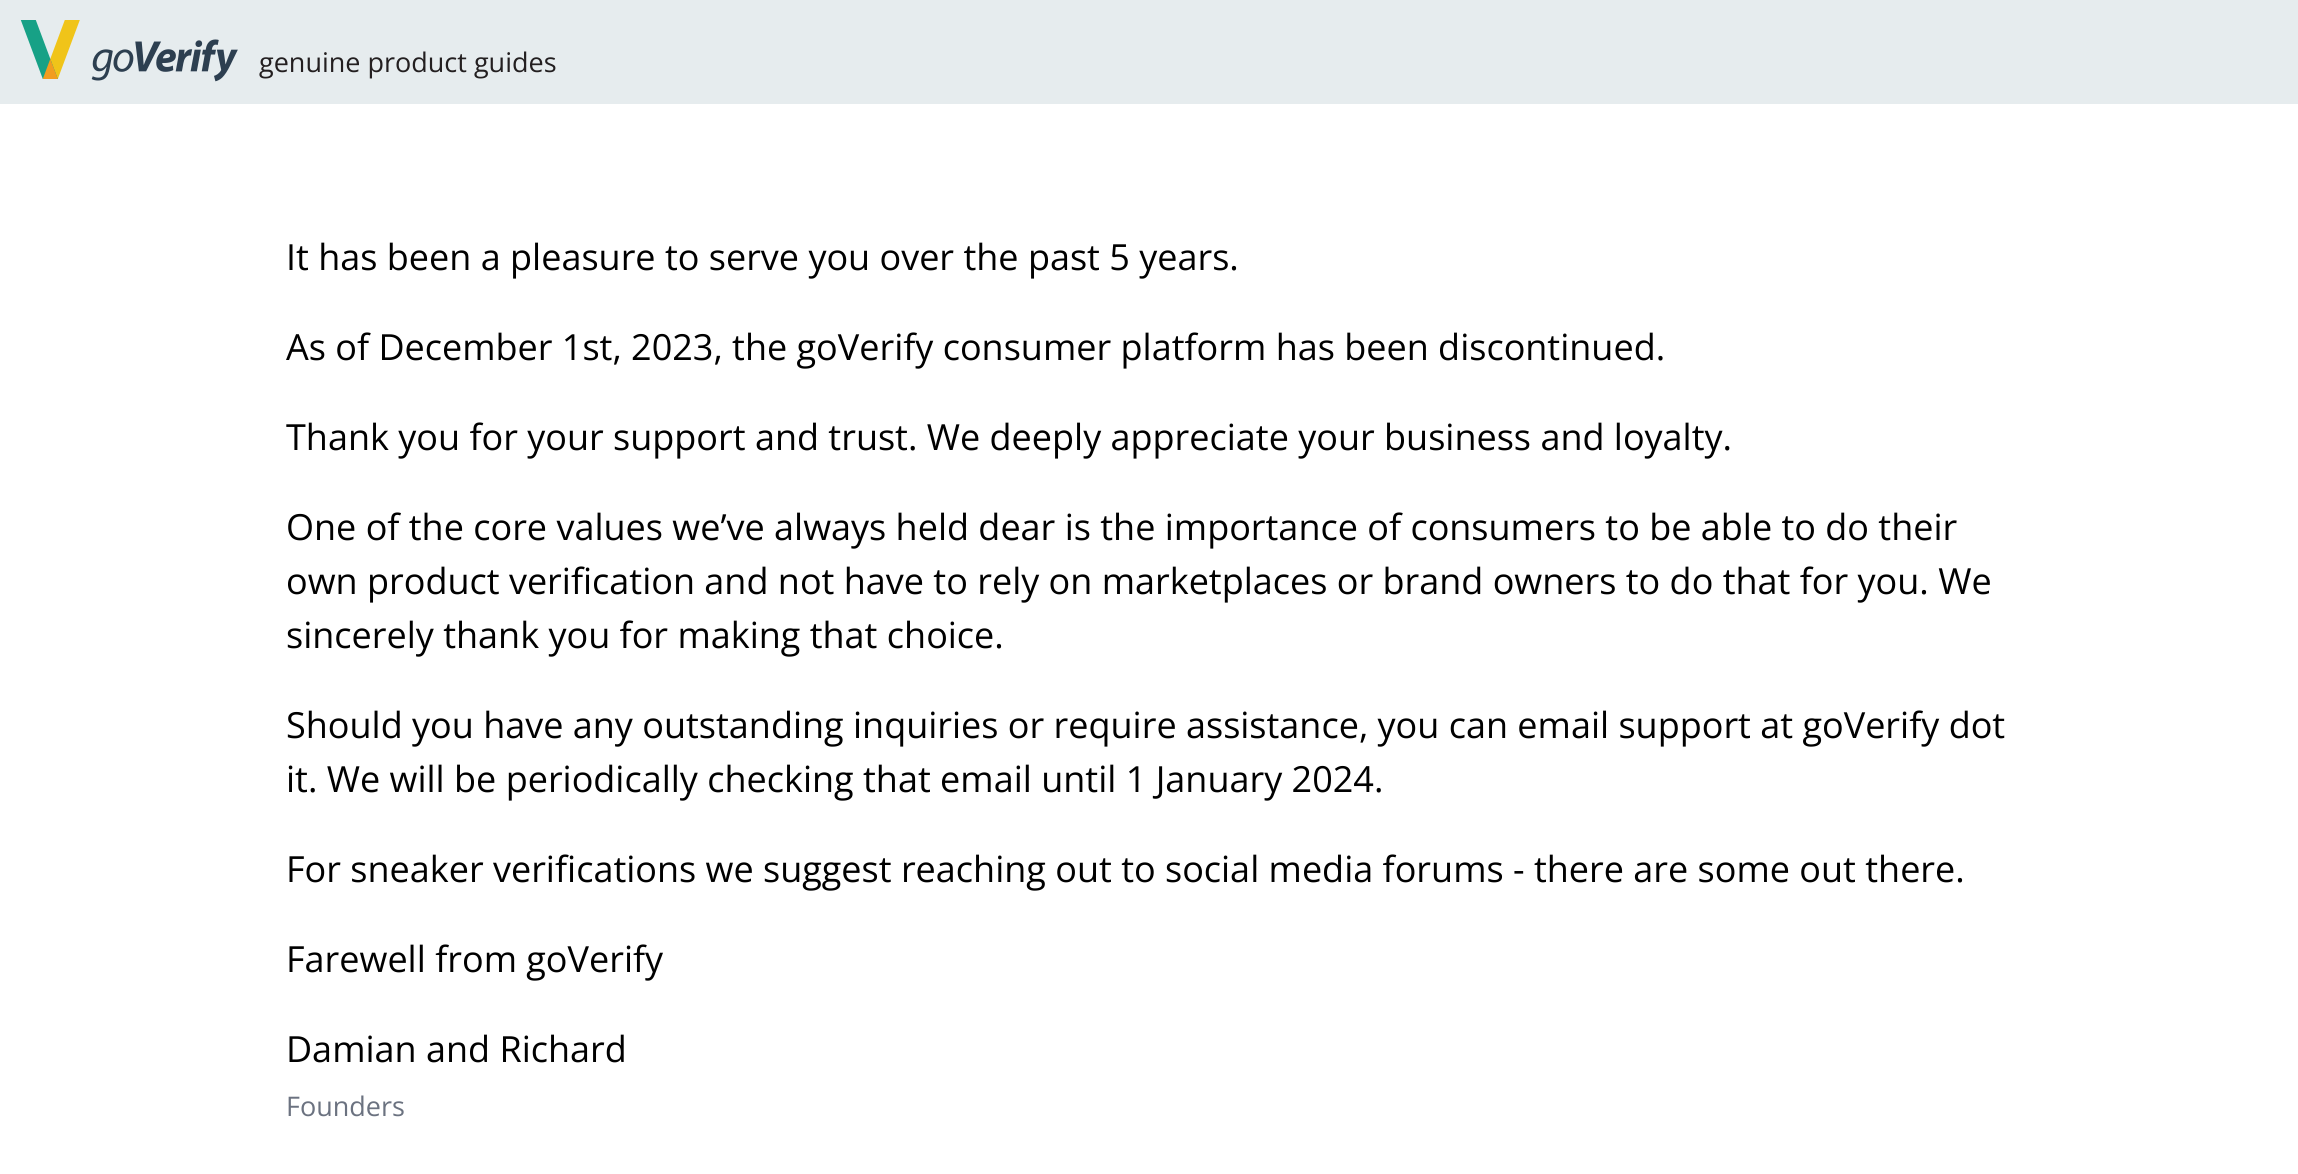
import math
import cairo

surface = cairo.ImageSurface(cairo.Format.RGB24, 2298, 1174)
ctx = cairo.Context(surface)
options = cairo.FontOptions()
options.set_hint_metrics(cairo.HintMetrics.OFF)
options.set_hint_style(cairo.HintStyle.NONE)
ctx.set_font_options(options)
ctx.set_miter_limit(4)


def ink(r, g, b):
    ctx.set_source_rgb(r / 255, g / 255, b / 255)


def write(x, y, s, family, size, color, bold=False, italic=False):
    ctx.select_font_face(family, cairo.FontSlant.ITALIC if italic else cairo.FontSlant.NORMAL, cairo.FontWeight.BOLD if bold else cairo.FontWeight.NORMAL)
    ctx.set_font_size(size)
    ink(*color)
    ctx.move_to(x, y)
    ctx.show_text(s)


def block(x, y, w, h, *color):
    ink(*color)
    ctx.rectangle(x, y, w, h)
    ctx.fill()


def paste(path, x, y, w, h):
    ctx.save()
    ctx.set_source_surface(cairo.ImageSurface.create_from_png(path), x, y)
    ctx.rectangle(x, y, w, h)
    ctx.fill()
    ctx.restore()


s1 = dict(family="Open Sans", size=27, color=(35, 31, 32))
s2 = dict(family="Open Sans", size=36, color=(0, 0, 0))
s3 = dict(family="Open Sans", size=27, color=(107, 114, 128))

ink(255, 255, 255)
ctx.paint()
block(0, 0, 2298, 104, 230, 236, 238)
paste("pic1.png", 20, 20, 218, 62)
write(259, 72, "genuine product guides", **s1)
write(286, 270, "It has been a pleasure to serve you over the past 5 years.", **s2)
write(286, 360, "As of December 1st, 2023, the goVerify consumer platform has been discontinued.", **s2)
write(286, 450, "Thank you for your support and trust. We deeply appreciate your business and loyalty.", **s2)
write(286, 540, "One of the core values we’ve always held dear is the importance of consumers to be able to do their", **s2)
write(286, 594, "own product verification and not have to rely on marketplaces or brand owners to do that for you. We", **s2)
write(286, 648, "sincerely thank you for making that choice.", **s2)
write(286, 738, "Should you have any outstanding inquiries or require assistance, you can email support at goVerify dot", **s2)
write(286, 792, "it. We will be periodically checking that email until 1 January 2024.", **s2)
write(286, 882, "For sneaker verifications we suggest reaching out to social media forums - there are some out there.", **s2)
write(286, 972, "Farewell from goVerify", **s2)
write(286, 1062, "Damian and Richard", **s2)
write(286, 1116, "Founders", **s3)
surface.write_to_png("screenshot.png")
